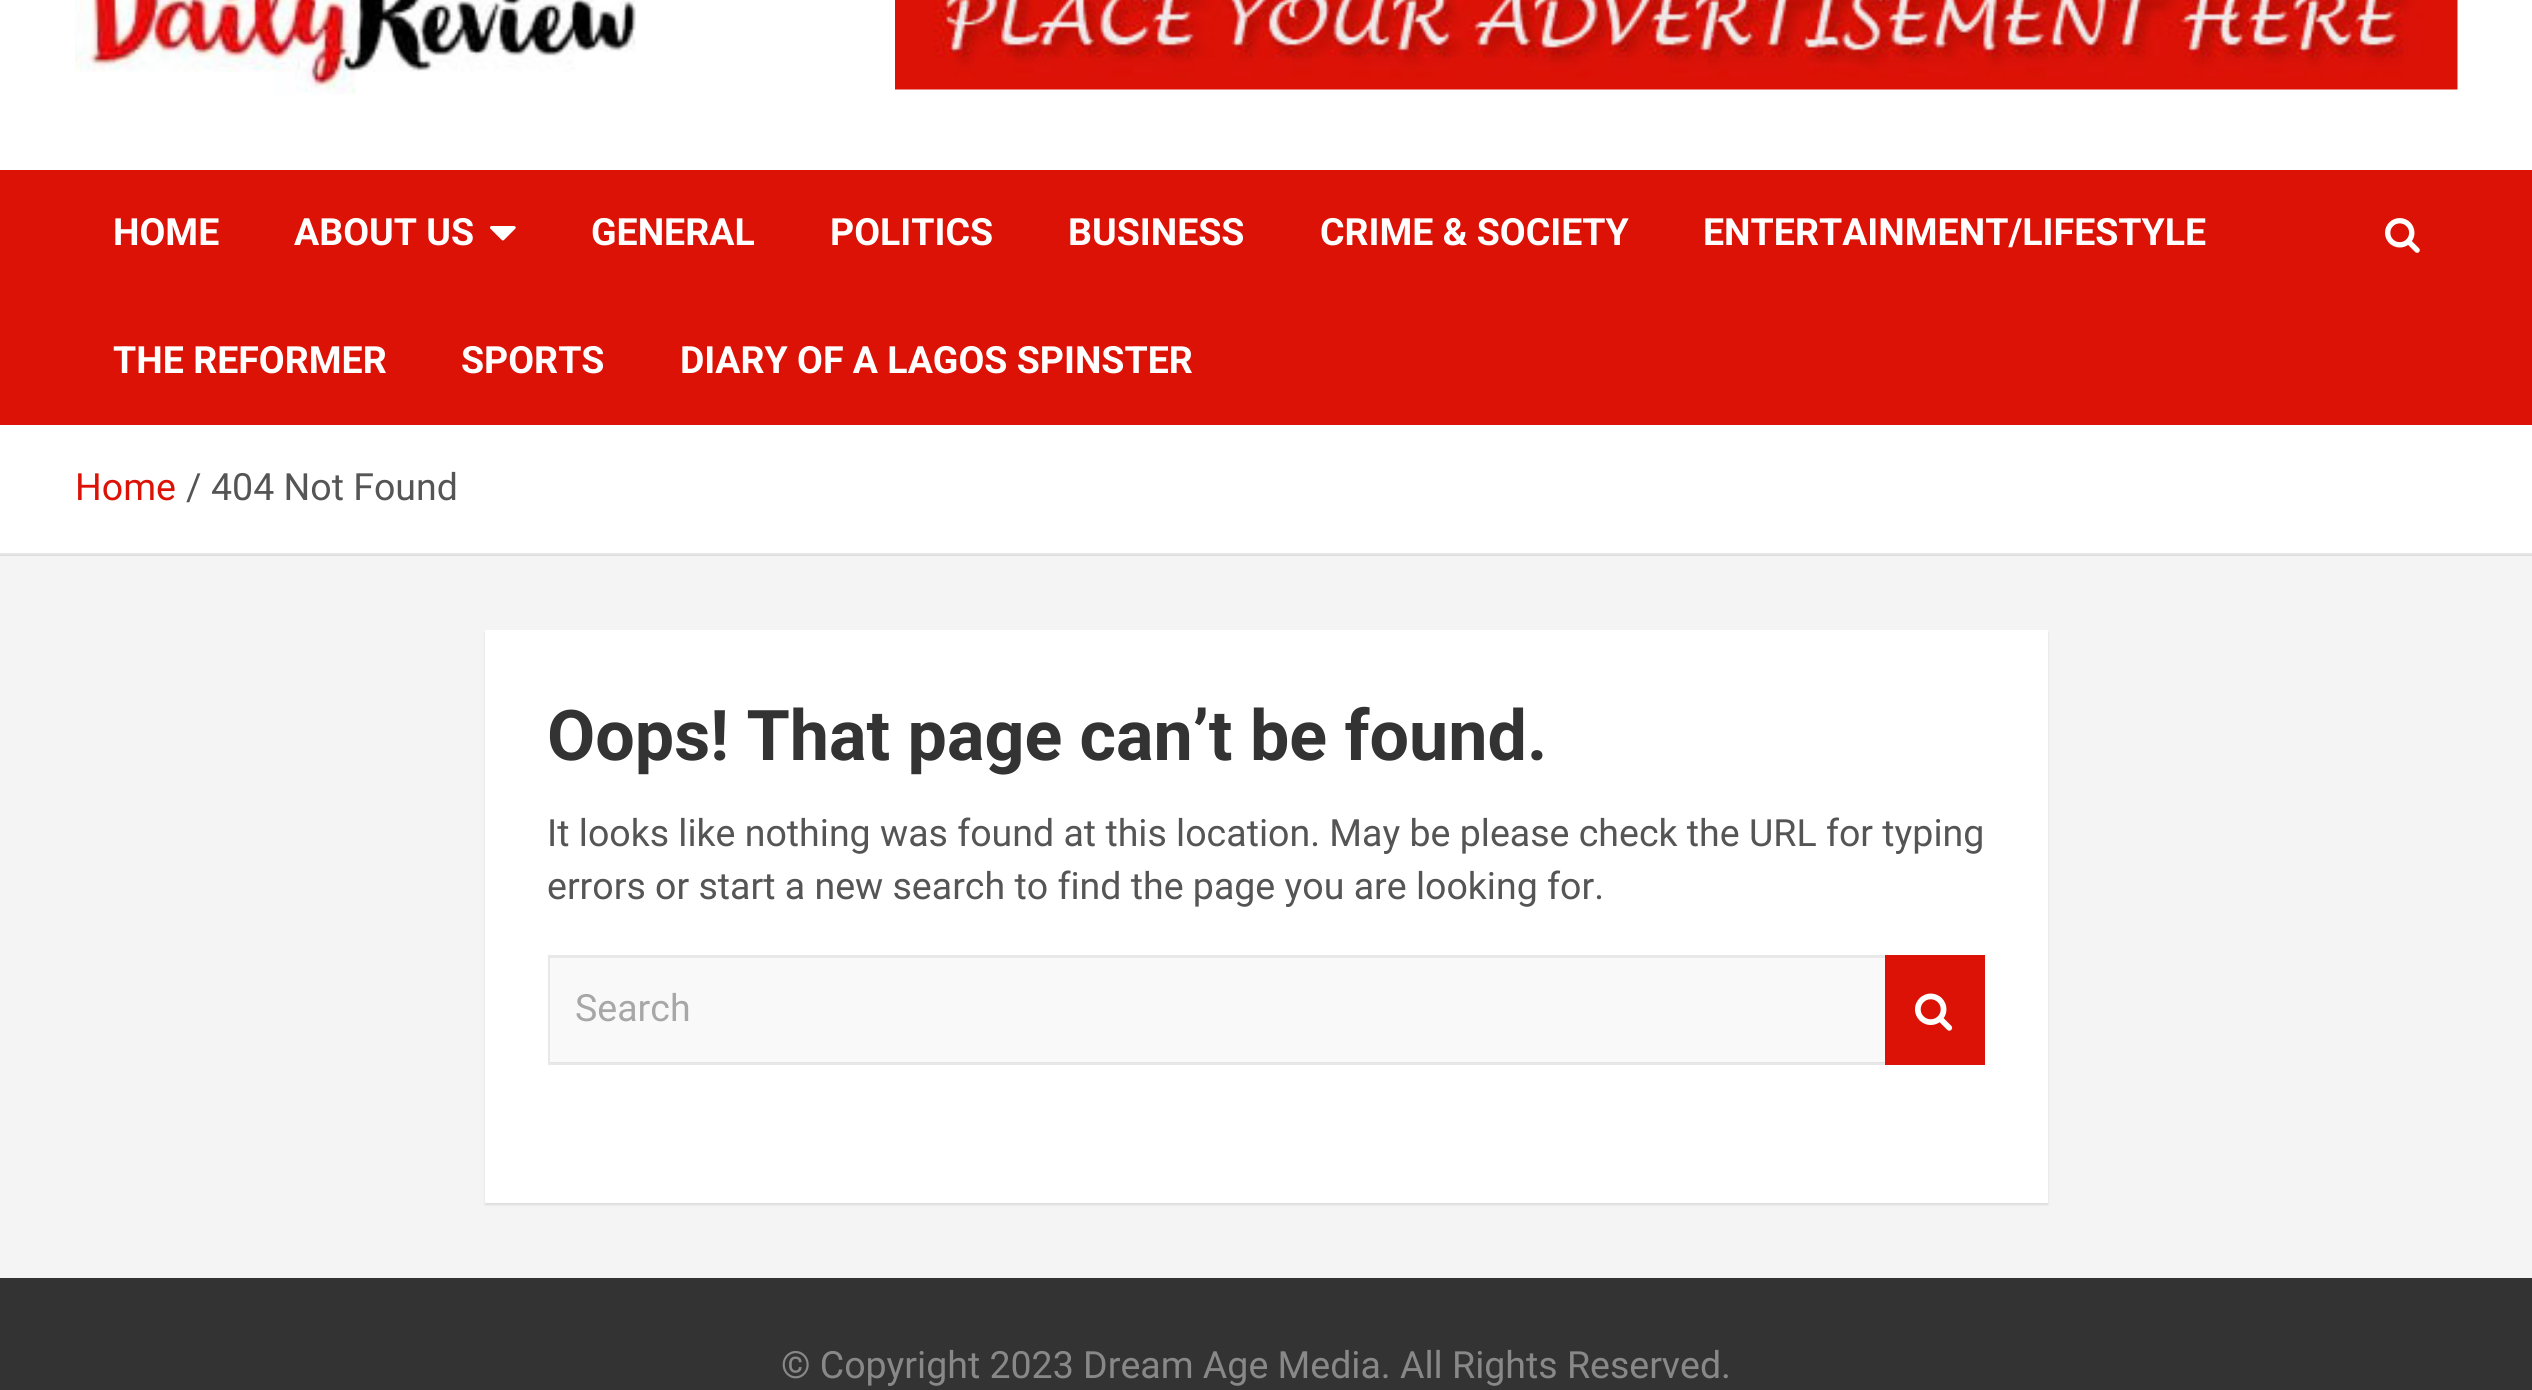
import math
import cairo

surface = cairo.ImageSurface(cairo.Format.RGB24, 2532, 1390)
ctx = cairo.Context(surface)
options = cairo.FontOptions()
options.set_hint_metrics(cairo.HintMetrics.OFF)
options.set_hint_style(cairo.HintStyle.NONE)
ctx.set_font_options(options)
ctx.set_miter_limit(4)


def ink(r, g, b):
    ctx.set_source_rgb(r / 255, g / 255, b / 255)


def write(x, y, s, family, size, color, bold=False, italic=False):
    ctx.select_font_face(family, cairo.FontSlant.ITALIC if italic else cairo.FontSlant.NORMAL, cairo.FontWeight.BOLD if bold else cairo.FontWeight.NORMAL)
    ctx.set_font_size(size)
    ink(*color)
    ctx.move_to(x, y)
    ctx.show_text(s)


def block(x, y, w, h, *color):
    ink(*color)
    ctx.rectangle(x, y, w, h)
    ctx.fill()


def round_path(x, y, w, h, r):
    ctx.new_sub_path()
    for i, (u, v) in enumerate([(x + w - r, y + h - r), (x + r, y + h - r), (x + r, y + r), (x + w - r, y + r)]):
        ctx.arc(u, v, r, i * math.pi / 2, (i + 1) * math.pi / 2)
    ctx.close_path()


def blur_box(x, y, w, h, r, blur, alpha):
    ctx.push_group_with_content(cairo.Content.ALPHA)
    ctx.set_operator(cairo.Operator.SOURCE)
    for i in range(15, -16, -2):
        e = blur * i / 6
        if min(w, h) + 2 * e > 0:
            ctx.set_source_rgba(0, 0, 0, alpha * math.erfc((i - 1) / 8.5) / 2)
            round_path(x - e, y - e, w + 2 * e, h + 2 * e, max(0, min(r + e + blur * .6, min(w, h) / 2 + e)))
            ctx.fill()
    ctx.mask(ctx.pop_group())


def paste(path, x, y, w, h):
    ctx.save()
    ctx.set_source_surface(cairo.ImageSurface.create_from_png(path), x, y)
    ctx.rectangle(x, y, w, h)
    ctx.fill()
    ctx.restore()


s1 = dict(family="Roboto", size=37.5, color=(255, 255, 255), bold=True)
s2 = dict(family="Roboto", size=37.5, color=(220, 18, 7))
s3 = dict(family="Roboto", size=37.5, color=(85, 85, 85))
s4 = dict(family="Roboto", size=70, color=(51, 51, 51), bold=True)
s5 = dict(family="Roboto", size=37.5, color=(167, 167, 167))
s6 = dict(family="Roboto", size=37.5, color=(136, 136, 136))

ink(244, 244, 244)
ctx.paint()
block(0, 555, 2532, 1, 220, 220, 220)
block(0, 0, 2532, 170, 255, 255, 255)
paste("pic1.png", 75, 0, 561, 95)
paste("pic2.png", 895, 0, 1563, 90)
block(0, 170, 2532, 255, 220, 18, 7)
write(113, 245, "HOME", **s1)
write(294, 245, "ABOUT US", **s1)
paste("pic3.png", 490, 226, 26, 15)
write(591, 245, "GENERAL", **s1)
write(830, 245, "POLITICS", **s1)
write(1068, 245, "BUSINESS", **s1)
write(1320, 245, "CRIME & SOCIETY", **s1)
write(1703, 245, "ENTERTAINMENT/LIFESTYLE", **s1)
write(113, 373, "THE REFORMER", **s1)
write(461, 373, "SPORTS", **s1)
write(680, 373, "DIARY OF A LAGOS SPINSTER", **s1)
paste("pic4.png", 2385, 218, 35, 35)
block(0, 425, 2532, 128, 255, 255, 255)
block(0, 553, 2532, 2, 230, 230, 230)
write(75, 500, "Home", **s2)
write(186, 500, "/", **s3)
write(211, 500, "404 Not Found", **s3)
ink(0, 0, 0)
blur_box(485, 633, 1563, 572, 0, 1, 0.1)
block(485, 630, 1563, 573, 255, 255, 255)
write(547, 760, "Oops! That page can’t be found.", **s4)
write(547, 846, "It looks like nothing was found at this location. May be please check the URL for typing", **s3)
write(547, 899, "errors or start a new search to find the page you are looking for.", **s3)
block(550, 958, 1335, 105, 249, 249, 249)
ink(232, 232, 232)
ctx.new_path()
ctx.move_to(548, 955)
ctx.line_to(1885, 955)
ctx.line_to(1885, 958)
ctx.line_to(550, 958)
ctx.close_path()
ctx.fill()
ctx.set_source_rgba(0, 0, 0, 0.09)
ctx.new_path()
ctx.move_to(1885, 1065)
ctx.line_to(548, 1065)
ctx.line_to(550, 1062)
ctx.line_to(1885, 1062)
ctx.close_path()
ctx.fill()
ctx.new_path()
ctx.move_to(548, 1065)
ctx.line_to(548, 955)
ctx.line_to(550, 958)
ctx.line_to(550, 1062)
ctx.close_path()
ctx.fill()
write(575, 1021, "Search", **s5)
block(1885, 955, 100, 110, 220, 18, 7)
paste("pic5.png", 1915, 993, 38, 38)
block(0, 1278, 2532, 112, 51, 51, 51)
write(781, 1378, "© Copyright 2023 Dream Age Media. All Rights Reserved.", **s6)
surface.write_to_png("screenshot.png")
